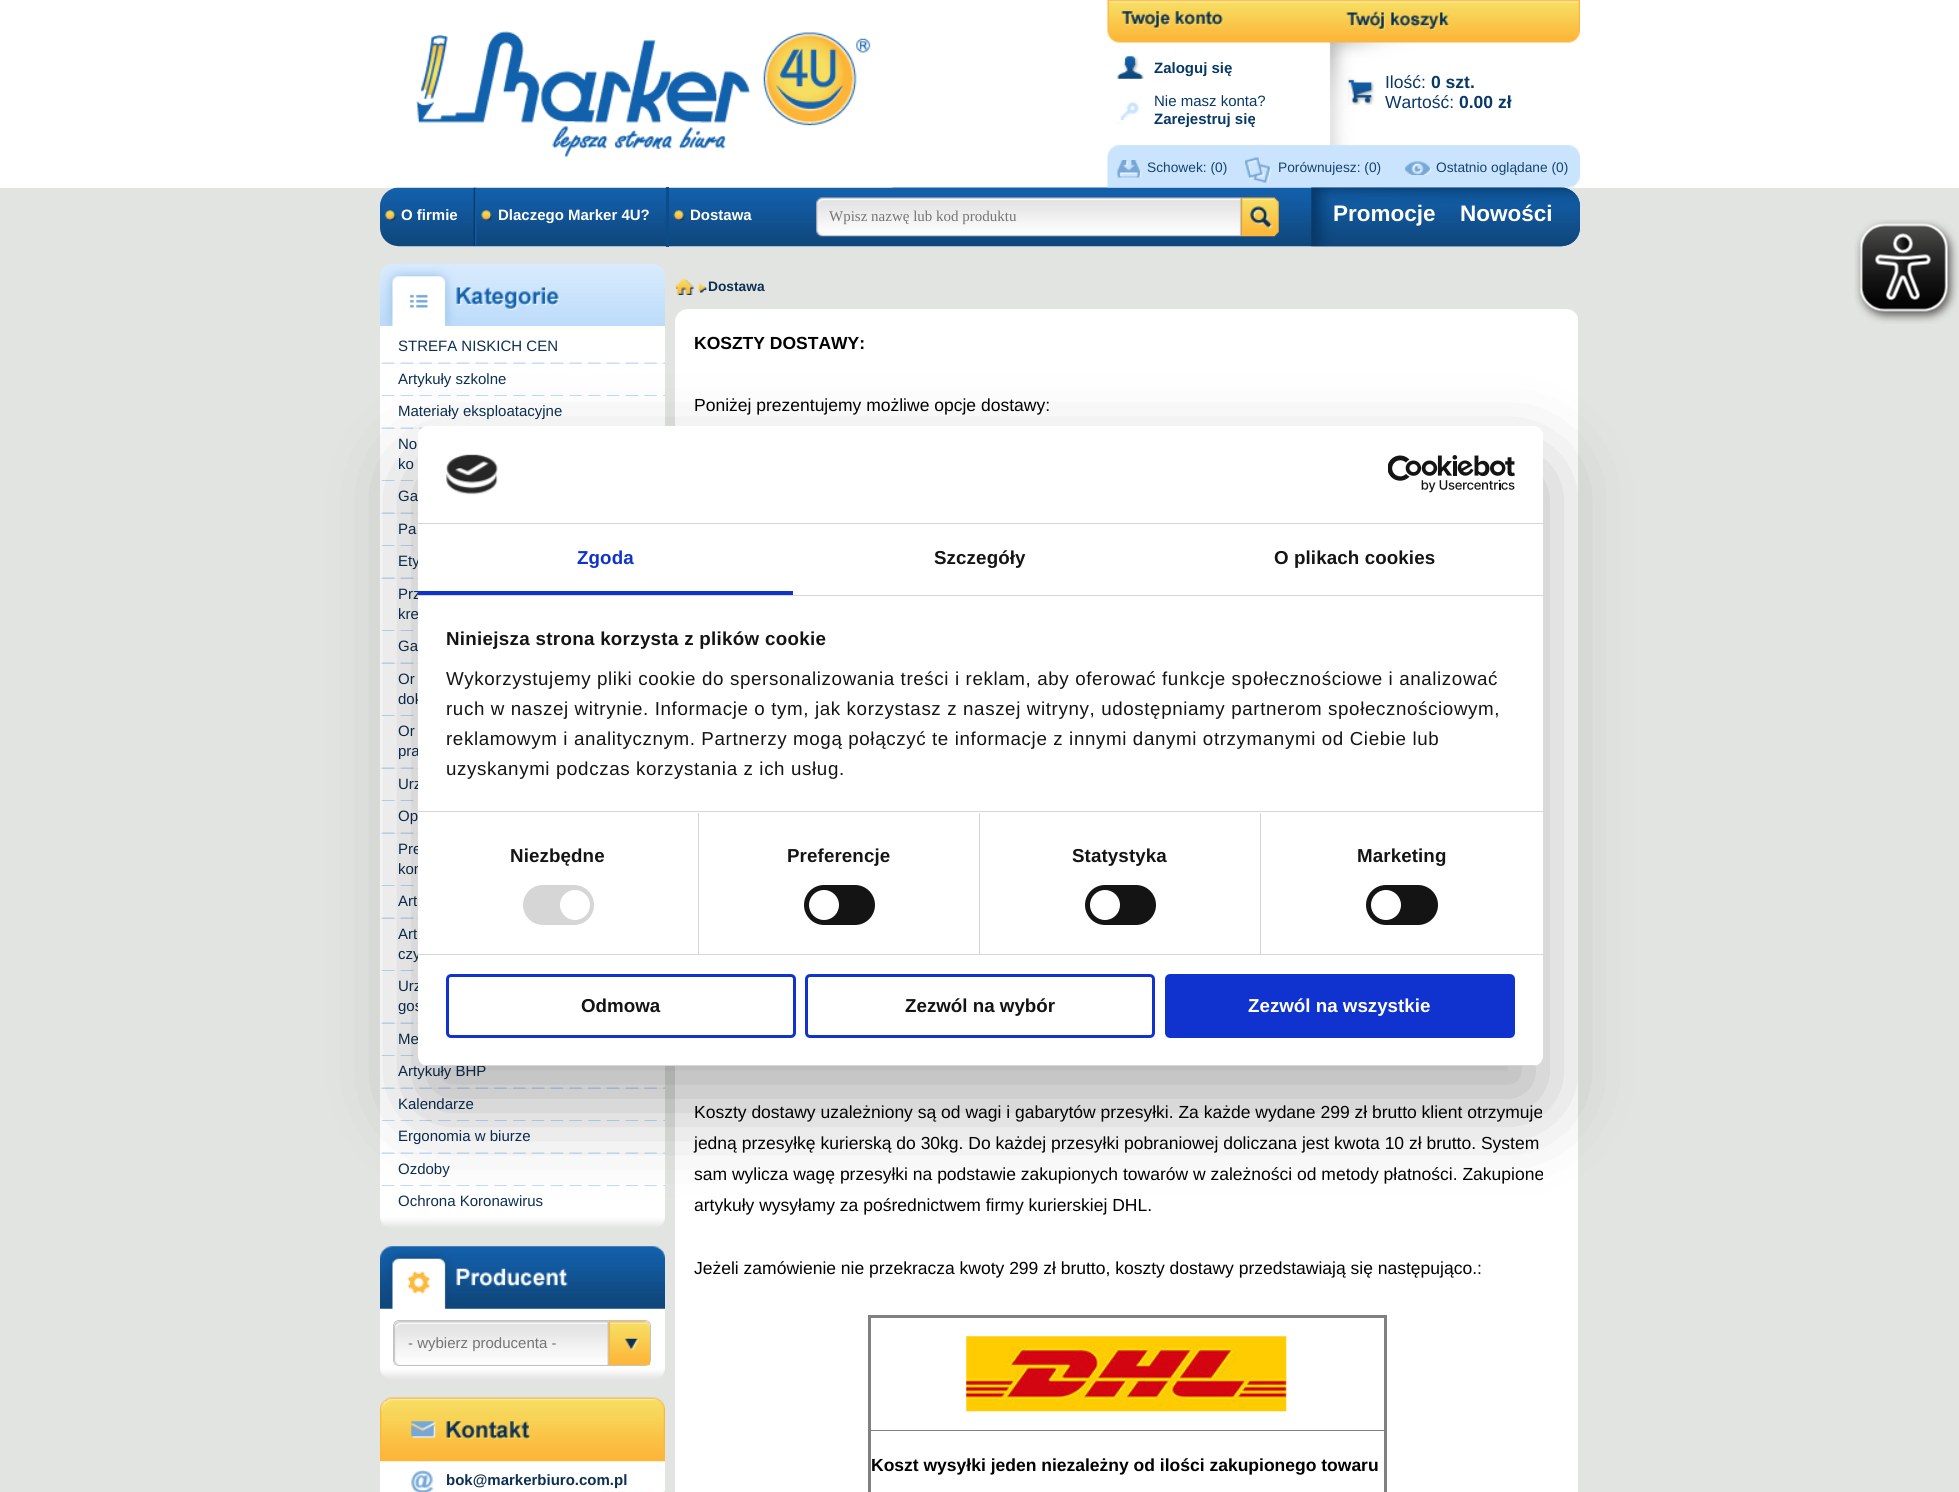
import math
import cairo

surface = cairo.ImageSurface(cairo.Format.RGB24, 1959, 1492)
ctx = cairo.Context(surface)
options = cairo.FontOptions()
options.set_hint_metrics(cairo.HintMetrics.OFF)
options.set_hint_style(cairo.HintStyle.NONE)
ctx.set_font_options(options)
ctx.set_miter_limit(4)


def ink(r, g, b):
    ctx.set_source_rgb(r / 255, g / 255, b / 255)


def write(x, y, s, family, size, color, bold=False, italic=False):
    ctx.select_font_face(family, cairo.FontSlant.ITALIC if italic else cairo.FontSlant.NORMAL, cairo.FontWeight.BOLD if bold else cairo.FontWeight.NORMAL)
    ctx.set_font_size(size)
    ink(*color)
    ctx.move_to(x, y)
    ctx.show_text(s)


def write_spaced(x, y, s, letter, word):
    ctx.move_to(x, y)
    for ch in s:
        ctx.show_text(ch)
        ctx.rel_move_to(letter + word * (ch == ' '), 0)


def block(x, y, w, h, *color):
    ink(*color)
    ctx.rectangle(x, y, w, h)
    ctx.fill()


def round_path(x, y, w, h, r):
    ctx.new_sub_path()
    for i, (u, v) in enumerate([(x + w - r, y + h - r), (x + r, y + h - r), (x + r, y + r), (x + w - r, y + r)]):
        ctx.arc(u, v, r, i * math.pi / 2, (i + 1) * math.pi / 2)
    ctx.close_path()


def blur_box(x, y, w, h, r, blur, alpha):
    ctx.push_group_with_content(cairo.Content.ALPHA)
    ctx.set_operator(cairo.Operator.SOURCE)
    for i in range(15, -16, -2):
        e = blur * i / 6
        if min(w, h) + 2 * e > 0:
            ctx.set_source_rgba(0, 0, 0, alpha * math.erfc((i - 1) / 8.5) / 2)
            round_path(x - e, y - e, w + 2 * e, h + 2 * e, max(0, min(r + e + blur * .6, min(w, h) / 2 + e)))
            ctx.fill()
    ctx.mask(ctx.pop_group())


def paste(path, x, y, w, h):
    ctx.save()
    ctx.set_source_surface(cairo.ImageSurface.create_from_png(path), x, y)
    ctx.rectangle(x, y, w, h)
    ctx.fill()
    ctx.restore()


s1 = dict(family="Liberation Sans", size=15, color=(7, 56, 104), bold=True)
s2 = dict(family="Liberation Sans", size=15, color=(7, 56, 104))
s3 = dict(family="Liberation Sans", size=17.5, color=(7, 56, 104))
s4 = dict(family="Liberation Sans", size=17.5, color=(7, 56, 104), bold=True)
s5 = dict(family="Liberation Sans", size=13.75, color=(20, 67, 114))
s6 = dict(family="Liberation Sans", size=15, color=(255, 255, 255), bold=True)
s7 = dict(family="Liberation Serif", size=15, color=(117, 117, 117))
s8 = dict(family="Liberation Sans", size=22.5, color=(255, 255, 255), bold=True)
s9 = dict(family="Liberation Sans", size=15, color=(12, 47, 82))
s10 = dict(family="Liberation Sans", size=15, color=(117, 117, 117))
s11 = dict(family="Liberation Sans", size=15, color=(12, 47, 82), bold=True)
s12 = dict(family="Liberation Sans", size=13.75, color=(12, 47, 82), bold=True)
s13 = dict(family="Liberation Sans", size=17.5, color=(0, 0, 0), bold=True)
s14 = dict(family="Liberation Sans", size=17.5, color=(0, 0, 0))
s15 = dict(family="Liberation Sans", size=18.75, color=(20, 20, 20), bold=True)
s16 = dict(family="Liberation Sans", size=18.75, color=(255, 255, 255), bold=True)

ink(226, 228, 225)
ctx.paint()
block(0, 0, 1959, 188, 255, 255, 255)
paste("pic11.png", 379, 187, 1202, 60)
paste("pic1.png", 394, 31, 499, 157)
paste("pic2.png", 1107, 0, 473, 188)
paste("pic3.png", 1121, 11, 103, 18)
paste("pic4.png", 1117, 55, 27, 24)
write(1154, 73, "Zaloguj się", **s1)
paste("pic5.png", 1116, 102, 23, 22)
write(1154, 106, "Nie masz konta?", **s2)
write(1154, 124, "Zarejestruj się", **s1)
paste("pic6.png", 1346, 11, 104, 19)
paste("pic7.png", 1347, 77, 27, 28)
write(1385, 88, "Ilość:", **s3)
write(1431, 88, "0 szt.", **s4)
write(1385, 108, "Wartość:", **s3)
write(1459, 108, "0.00 zł", **s4)
paste("pic8.png", 1117, 160, 25, 18)
write(1147, 172, "Schowek: (0)", **s5)
paste("pic9.png", 1245, 157, 27, 26)
write(1278, 172, "Porównujesz: (0)", **s5)
paste("pic10.png", 1404, 161, 28, 14)
write(1436, 172, "Ostatnio oglądane (0)", **s5)
paste("pic12.png", 473, 187, 4, 60)
paste("pic13.png", 385, 210, 12, 12)
write(401, 220, "O firmie", **s6)
block(666, 187, 3, 60, 12, 76, 137)
paste("pic14.png", 481, 210, 12, 12)
write(498, 220, "Dlaczego Marker 4U?", **s6)
paste("pic15.png", 673, 210, 12, 12)
write(690, 220, "Dostawa", **s6)
paste("pic16.png", 816, 197, 426, 40)
write(829, 221, "Wpisz nazwę lub kod produktu", **s7)
paste("pic17.png", 1241, 197, 38, 40)
paste("pic18.png", 1311, 187, 270, 60)
write(1333, 221, "Promocje", **s8)
write(1460, 221, "Nowości", **s8)
paste("pic19.png", 380, 263, 285, 63)
block(380, 326, 285, 37, 255, 255, 255)
write(398, 351, "STREFA NISKICH CEN", **s9)
paste("pic20.png", 380, 362, 285, 2)
block(380, 364, 285, 31, 255, 255, 255)
write(398, 384, "Artykuły szkolne", **s9)
paste("pic21.png", 380, 395, 285, 1)
block(380, 396, 285, 32, 255, 255, 255)
write(398, 416, "Materiały eksploatacyjne", **s9)
paste("pic22.png", 380, 427, 44, 2)
block(380, 429, 41, 51, 255, 255, 255)
write(398, 449, "No", **s9)
write(398, 469, "ko", **s9)
paste("pic23.png", 380, 480, 38, 1)
block(380, 481, 38, 32, 255, 255, 255)
write(398, 501, "Ga", **s9)
paste("pic24.png", 380, 512, 38, 2)
block(380, 514, 38, 31, 255, 255, 255)
write(398, 534, "Pa", **s9)
paste("pic23.png", 380, 545, 38, 1)
block(380, 546, 38, 32, 255, 255, 255)
write(398, 566, "Ety", **s9)
paste("pic24.png", 380, 577, 38, 2)
block(380, 579, 38, 51, 255, 255, 255)
write(398, 599, "Prz", **s9)
write(398, 619, "kre", **s9)
paste("pic23.png", 380, 630, 38, 1)
block(380, 631, 38, 32, 255, 255, 255)
write(398, 651, "Ga", **s9)
paste("pic24.png", 380, 662, 38, 2)
block(380, 664, 38, 51, 255, 255, 255)
write(398, 684, "Or", **s9)
write(398, 704, "dok", **s9)
paste("pic23.png", 380, 715, 38, 1)
block(380, 716, 38, 52, 255, 255, 255)
write(398, 736, "Or", **s9)
write(398, 756, "pra", **s9)
paste("pic24.png", 380, 767, 38, 2)
block(380, 769, 38, 31, 255, 255, 255)
write(398, 789, "Urz", **s9)
paste("pic23.png", 380, 800, 38, 1)
block(380, 801, 38, 32, 255, 255, 255)
write(398, 821, "Op", **s9)
paste("pic24.png", 380, 832, 38, 2)
block(380, 834, 38, 51, 255, 255, 255)
write(398, 854, "Pre", **s9)
write(398, 874, "kon", **s9)
paste("pic23.png", 380, 885, 38, 1)
block(380, 886, 38, 32, 255, 255, 255)
write(398, 906, "Art", **s9)
paste("pic24.png", 380, 917, 38, 2)
block(380, 919, 38, 51, 255, 255, 255)
write(398, 939, "Art", **s9)
write(398, 959, "czy", **s9)
paste("pic23.png", 380, 970, 38, 1)
block(380, 971, 38, 52, 255, 255, 255)
write(398, 991, "Urz", **s9)
write(398, 1011, "gos", **s9)
paste("pic24.png", 380, 1022, 38, 2)
block(380, 1024, 38, 31, 255, 255, 255)
write(398, 1044, "Me", **s9)
paste("pic23.png", 380, 1055, 38, 1)
block(380, 1056, 285, 32, 255, 255, 255)
write(398, 1076, "Artykuły BHP", **s9)
paste("pic20.png", 380, 1087, 285, 2)
block(380, 1089, 285, 31, 255, 255, 255)
write(398, 1109, "Kalendarze", **s9)
paste("pic21.png", 380, 1120, 285, 1)
block(380, 1121, 285, 32, 255, 255, 255)
write(398, 1141, "Ergonomia w biurze", **s9)
paste("pic20.png", 380, 1152, 285, 2)
block(380, 1154, 285, 31, 255, 255, 255)
write(398, 1174, "Ozdoby", **s9)
paste("pic21.png", 380, 1185, 285, 1)
block(380, 1186, 285, 32, 255, 255, 255)
write(398, 1206, "Ochrona Koronawirus", **s9)
paste("pic25.png", 380, 1218, 285, 10)
paste("pic26.png", 380, 1246, 285, 133)
round_path(393.5, 1320.5, 257, 45, 5.5)
ink(195, 195, 195)
ctx.set_line_width(1)
ctx.stroke()
ink(226, 226, 228)
ctx.new_path()
ctx.move_to(400, 1321)
ctx.line_to(644, 1321)
ctx.curve_to(647.5, 1321, 650, 1323.5, 650, 1327)
ctx.line_to(650, 1365)
ctx.line_to(394, 1365)
ctx.line_to(394, 1327)
ctx.curve_to(394, 1323.5, 396.5, 1321, 400, 1321)
ctx.close_path()
ctx.fill()
paste("pic27.png", 394, 1321, 256, 44)
write(408, 1348, "- wybierz producenta -", **s10)
block(380, 1461, 285, 31, 255, 255, 255)
paste("pic28.png", 380, 1397, 285, 65)
paste("pic29.png", 601, 1491, 64, 1)
paste("pic30.png", 411, 1470, 23, 22)
write(446, 1485, "bok@markerbiuro.com.pl", **s11)
paste("pic31.png", 675, 278, 19, 17)
paste("pic32.png", 698, 283, 9, 10)
write(708, 291, "Dostawa", **s12)
ctx.save()
ctx.rectangle(675, 264, 903, 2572)
ctx.clip()
ink(255, 255, 255)
round_path(675, 309, 904, 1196, 13)
ctx.fill()
ctx.restore()
write(694, 349, "KOSZTY DOSTAWY:", **s13)
write(694, 411, "Poniżej prezentujemy możliwe opcje dostawy:", **s14)
write(694, 1118, "Koszty dostawy uzależniony są od wagi i gabarytów przesyłki. Za każde wydane 299 zł brutto klient otrzymuje", **s14)
write(694, 1149, "jedną przesyłkę kurierską do 30kg. Do każdej przesyłki pobraniowej doliczana jest kwota 10 zł brutto. System", **s14)
write(694, 1180, "sam wylicza wagę przesyłki na podstawie zakupionych towarów w zależności od metody płatności. Zakupione", **s14)
write(694, 1211, "artykuły wysyłamy za pośrednictwem firmy kurierskiej DHL.", **s14)
write(694, 1274, "Jeżeli zamówienie nie przekracza kwoty 299 zł brutto, koszty dostawy przedstawiają się następująco.:", **s14)
block(868, 1315, 518, 3, 128, 128, 128)
block(868, 1430, 518, 1, 128, 128, 128)
block(1384, 1315, 3, 177, 128, 128, 128)
block(868, 1315, 3, 177, 128, 128, 128)
paste("pic33.png", 966, 1336, 321, 76)
write(871, 1471, "Koszt wysyłki jeden niezależny od ilości zakupionego towaru", **s13)
paste("pic34.png", 1854, 219, 105, 105)
ink(0, 0, 0)
blur_box(418, 466, 1125, 640, 10, 42.5, 0.3)
ink(255, 255, 255)
round_path(418, 426, 1125, 640, 10)
ctx.fill()
block(418, 523, 1125, 1, 214, 214, 214)
paste("pic35.png", 446, 454, 52, 41)
paste("pic36.png", 1388, 455, 127, 38)
block(418, 595, 1125, 1, 214, 214, 214)
block(418, 591, 375, 4, 16, 50, 207)
ctx.set_font_size(18.75)
write_spaced(577, 564, "Zgoda", 0.1, 0)
ink(20, 20, 20)
write_spaced(934, 564, "Szczegóły", 0.1, 0)
write_spaced(1274, 564, "O plikach cookies", 0.1, 0)
block(418, 811, 1125, 1, 214, 214, 214)
ink(20, 20, 20)
write_spaced(446, 645, "Niniejsza strona korzysta z plików cookie", 0.3, 0)
ctx.select_font_face("Liberation Sans")
write_spaced(446, 685, "Wykorzystujemy pliki cookie do spersonalizowania treści i reklam, aby oferować funkcje społecznościowe i analizować", 0.62, 0)
write_spaced(446, 715, "ruch w naszej witrynie. Informacje o tym, jak korzystasz z naszej witryny, udostępniamy partnerom społecznościowym,", 0.62, 0)
write_spaced(446, 745, "reklamowym i analitycznym. Partnerzy mogą połączyć te informacje z innymi danymi otrzymanymi od Ciebie lub", 0.62, 0)
write_spaced(446, 775, "uzyskanymi podczas korzystania z ich usług.", 0.62, 0)
block(418, 954, 1125, 1, 214, 214, 214)
block(698, 813, 1, 141, 214, 214, 214)
ctx.select_font_face("Liberation Sans", cairo.FontSlant.NORMAL, cairo.FontWeight.BOLD)
ink(20, 20, 20)
write_spaced(510, 862, "Niezbędne", 0.1, 0)
ink(214, 214, 214)
round_path(523, 885, 71, 40, 20)
ctx.fill()
ink(255, 255, 255)
ctx.arc(575, 905, 15, 0, 2 * math.pi)
ctx.fill()
block(979, 813, 1, 141, 214, 214, 214)
ink(20, 20, 20)
write_spaced(787, 862, "Preferencje", 0.1, 0)
round_path(804, 885, 71, 40, 20)
ctx.fill()
ink(255, 255, 255)
ctx.arc(824, 905, 15, 0, 2 * math.pi)
ctx.fill()
block(1260, 813, 1, 141, 214, 214, 214)
ink(20, 20, 20)
write_spaced(1072, 862, "Statystyka", 0.1, 0)
round_path(1085, 885, 71, 40, 20)
ctx.fill()
ink(255, 255, 255)
ctx.arc(1105, 905, 15, 0, 2 * math.pi)
ctx.fill()
ink(20, 20, 20)
write_spaced(1357, 862, "Marketing", 0.1, 0)
round_path(1366, 885, 72, 40, 20)
ctx.fill()
ink(255, 255, 255)
ctx.arc(1386, 905, 15, 0, 2 * math.pi)
ctx.fill()
ctx.save()
round_path(418, 426, 1125, 640, 10)
ctx.clip()
block(418, 1065, 1125, 1, 214, 214, 214)
ctx.restore()
round_path(447.5, 975.5, 347, 61, 3.5)
ink(16, 50, 207)
ctx.set_line_width(3)
ctx.stroke()
write(581, 1012, "Odmowa", **s15)
round_path(806.5, 975.5, 347, 61, 3.5)
ink(16, 50, 207)
ctx.stroke()
write(905, 1012, "Zezwól na wybór", **s15)
ink(16, 50, 207)
round_path(1166.5, 975.5, 347, 61, 3.5)
ctx.fill_preserve()
ctx.stroke()
write(1248, 1012, "Zezwól na wszystkie", **s16)
surface.write_to_png("screenshot.png")
